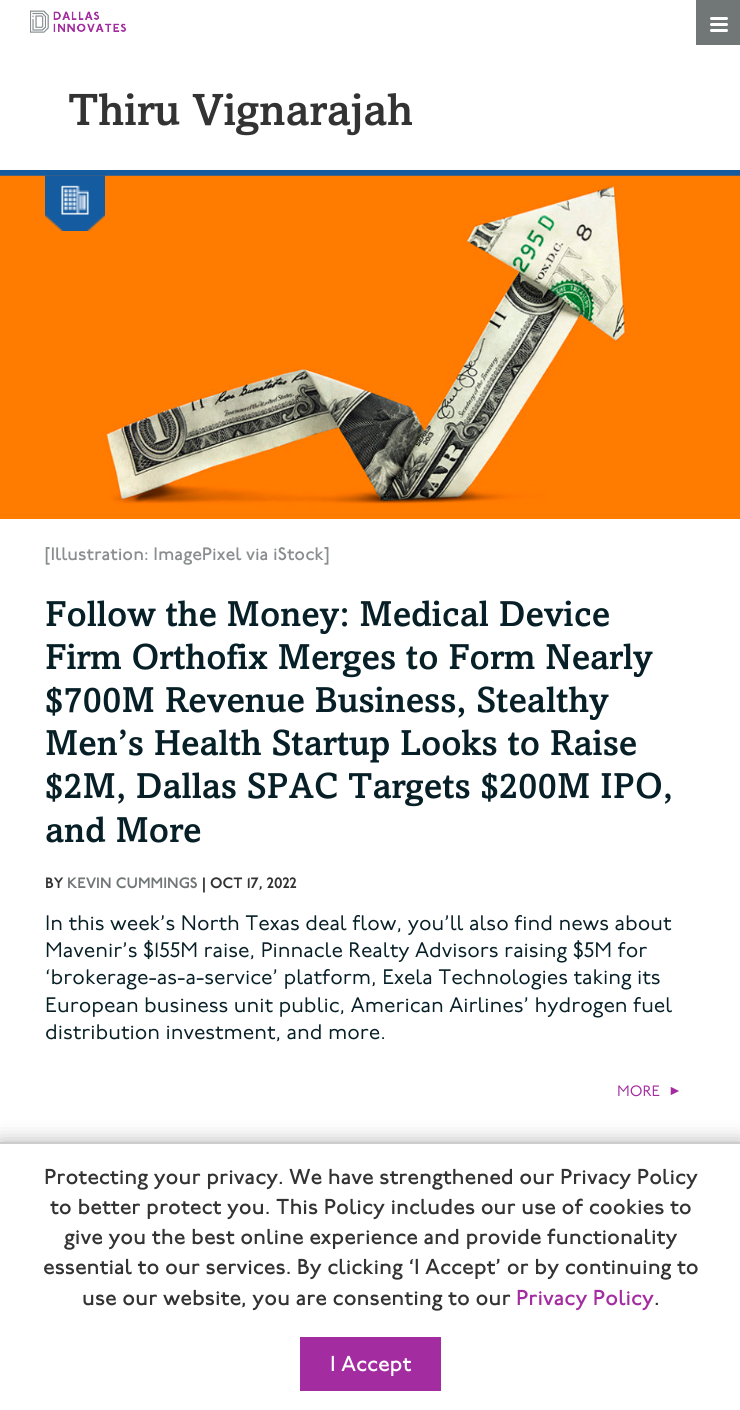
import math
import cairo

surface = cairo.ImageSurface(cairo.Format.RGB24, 740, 1410)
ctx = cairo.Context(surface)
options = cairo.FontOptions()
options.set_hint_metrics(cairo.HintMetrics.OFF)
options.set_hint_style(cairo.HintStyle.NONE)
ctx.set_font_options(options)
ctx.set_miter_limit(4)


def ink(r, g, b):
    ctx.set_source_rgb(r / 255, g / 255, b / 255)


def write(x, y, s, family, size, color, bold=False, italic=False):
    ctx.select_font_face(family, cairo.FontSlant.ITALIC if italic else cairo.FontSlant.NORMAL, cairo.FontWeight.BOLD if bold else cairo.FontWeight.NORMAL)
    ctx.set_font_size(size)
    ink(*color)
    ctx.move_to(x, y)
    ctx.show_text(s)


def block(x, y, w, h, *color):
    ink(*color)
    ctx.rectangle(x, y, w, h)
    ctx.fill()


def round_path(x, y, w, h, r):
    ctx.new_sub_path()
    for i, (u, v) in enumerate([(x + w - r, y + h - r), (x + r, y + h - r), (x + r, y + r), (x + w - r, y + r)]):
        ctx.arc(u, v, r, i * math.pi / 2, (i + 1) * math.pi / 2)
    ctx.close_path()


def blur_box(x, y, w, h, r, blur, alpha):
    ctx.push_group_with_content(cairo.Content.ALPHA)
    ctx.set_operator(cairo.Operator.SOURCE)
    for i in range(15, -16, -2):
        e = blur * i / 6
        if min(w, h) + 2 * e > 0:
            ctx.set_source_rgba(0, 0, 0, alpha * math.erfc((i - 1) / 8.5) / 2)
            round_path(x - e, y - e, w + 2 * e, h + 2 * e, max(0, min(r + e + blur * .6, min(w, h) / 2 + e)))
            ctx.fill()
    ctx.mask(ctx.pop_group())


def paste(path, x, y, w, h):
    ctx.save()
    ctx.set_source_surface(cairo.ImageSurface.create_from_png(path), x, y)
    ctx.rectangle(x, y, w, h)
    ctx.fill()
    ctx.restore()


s1 = dict(family="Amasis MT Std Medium", size=45, color=(51, 51, 51))
s2 = dict(family="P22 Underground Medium", size=18, color=(138, 142, 143))
s3 = dict(family="Amasis MT Std Medium", size=36, color=(7, 31, 38))
s4 = dict(family="P22 Underground SemiBold", size=15, color=(51, 51, 51))
s5 = dict(family="P22 Underground SemiBold", size=15, color=(113, 118, 119))
s6 = dict(family="P22 Underground", size=21, color=(7, 31, 38))
s7 = dict(family="P22 Underground", size=15, color=(164, 44, 161))
s8 = dict(family="Liberation Sans", size=14, color=(164, 44, 161))
s9 = dict(family="P22 Underground Medium", size=21.6, color=(51, 51, 51))
s10 = dict(family="P22 Underground Medium", size=21.6, color=(164, 44, 161))
s11 = dict(family="P22 Underground Medium", size=21.6, color=(255, 255, 255))

ink(255, 255, 255)
ctx.paint()
paste("pic1.png", 30, 10, 96, 23)
block(696, 0, 44, 45, 113, 118, 119)
ink(255, 255, 255)
round_path(710, 17, 18, 3, 1.5)
ctx.fill()
round_path(710, 23, 18, 3, 1.5)
ctx.fill()
round_path(710, 29, 18, 3, 1.5)
ctx.fill()
write(68, 125, "Thiru Vignarajah", **s1)
block(0, 170, 740, 6, 21, 91, 160)
paste("pic2.png", 0, 175, 740, 344)
paste("pic3.png", 45, 175, 60, 56)
write(45, 560, "[Illustration: ImagePixel via iStock]", **s2)
write(45, 626, "Follow the Money: Medical Device", **s3)
write(45, 669, "Firm Orthofix Merges to Form Nearly", **s3)
write(45, 712, "$700M Revenue Business, Stealthy", **s3)
write(45, 755, "Men’s Health Startup Looks to Raise", **s3)
write(45, 798, "$2M, Dallas SPAC Targets $200M IPO,", **s3)
write(45, 842, "and More", **s3)
write(45, 888, "BY", **s4)
write(67, 888, "KEVIN CUMMINGS", **s5)
write(202, 888, "| OCT 17, 2022", **s4)
write(45, 930, "In this week’s North Texas deal flow, you’ll also find news about", **s6)
write(45, 957, "Mavenir’s $155M raise, Pinnacle Realty Advisors raising $5M for", **s6)
write(45, 984, "‘brokerage-as-a-service’ platform, Exela Technologies taking its", **s6)
write(45, 1012, "European business unit public, American Airlines’ hydrogen fuel", **s6)
write(45, 1039, "distribution investment, and more.", **s6)
write(617, 1096, "MORE", **s7)
write(668, 1095, "►", **s8)
ink(0, 0, 0)
blur_box(0, 1142, 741, 268, 0, 10, 0.3)
block(0, 1144, 740, 266, 255, 255, 255)
block(0, 1142, 740, 2, 204, 204, 204)
write(44, 1184, "Protecting your privacy. We have strengthened our Privacy Policy", **s9)
write(50, 1214, "to better protect you. This Policy includes our use of cookies to", **s9)
write(64, 1244, "give you the best online experience and provide functionality", **s9)
write(43, 1274, "essential to our services. By clicking ‘I Accept’ or by continuing to", **s9)
write(82, 1305, "use our website, you are consenting to our", **s9)
write(516, 1305, "Privacy Policy", **s10)
write(654, 1305, ".", **s9)
block(300, 1337, 141, 54, 164, 44, 161)
write(330, 1371, "I Accept", **s11)
surface.write_to_png("screenshot.png")
